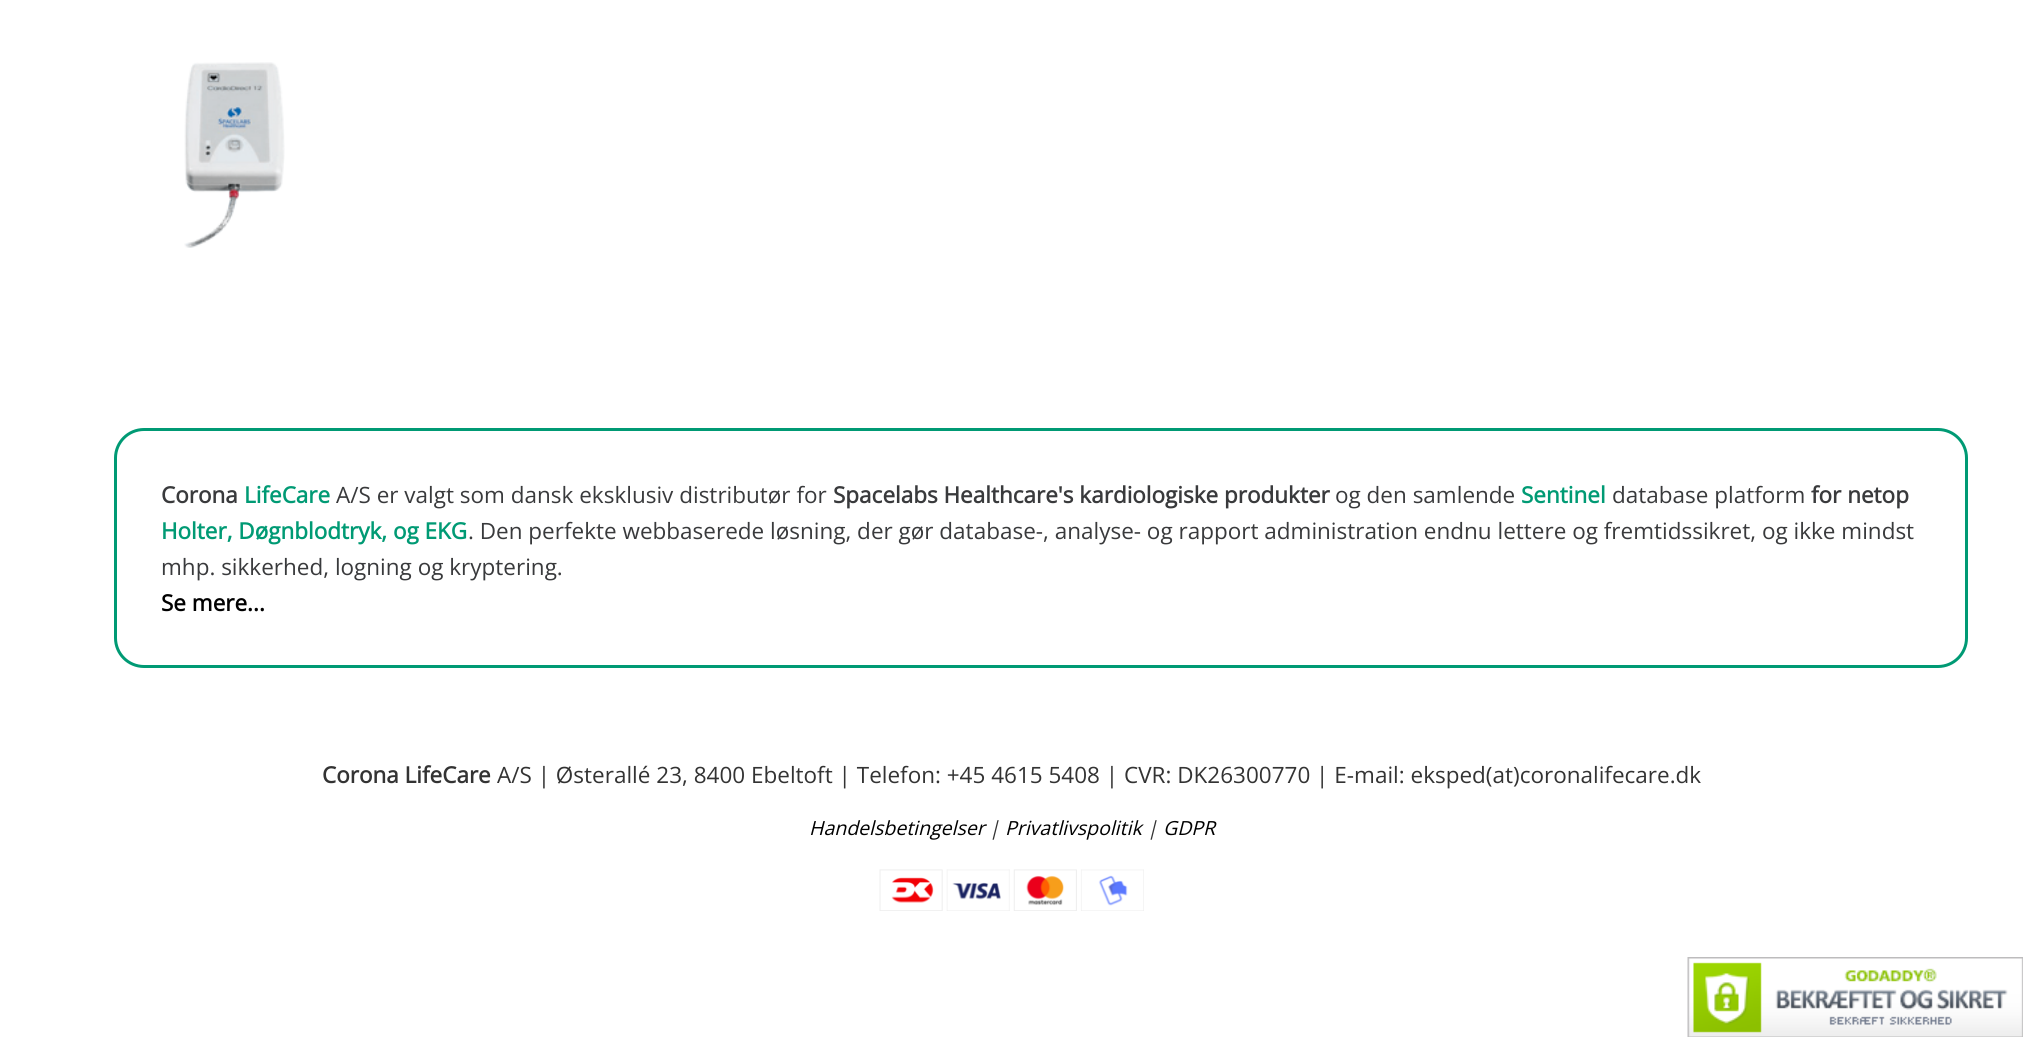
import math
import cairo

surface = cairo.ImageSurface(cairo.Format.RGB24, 2023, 1037)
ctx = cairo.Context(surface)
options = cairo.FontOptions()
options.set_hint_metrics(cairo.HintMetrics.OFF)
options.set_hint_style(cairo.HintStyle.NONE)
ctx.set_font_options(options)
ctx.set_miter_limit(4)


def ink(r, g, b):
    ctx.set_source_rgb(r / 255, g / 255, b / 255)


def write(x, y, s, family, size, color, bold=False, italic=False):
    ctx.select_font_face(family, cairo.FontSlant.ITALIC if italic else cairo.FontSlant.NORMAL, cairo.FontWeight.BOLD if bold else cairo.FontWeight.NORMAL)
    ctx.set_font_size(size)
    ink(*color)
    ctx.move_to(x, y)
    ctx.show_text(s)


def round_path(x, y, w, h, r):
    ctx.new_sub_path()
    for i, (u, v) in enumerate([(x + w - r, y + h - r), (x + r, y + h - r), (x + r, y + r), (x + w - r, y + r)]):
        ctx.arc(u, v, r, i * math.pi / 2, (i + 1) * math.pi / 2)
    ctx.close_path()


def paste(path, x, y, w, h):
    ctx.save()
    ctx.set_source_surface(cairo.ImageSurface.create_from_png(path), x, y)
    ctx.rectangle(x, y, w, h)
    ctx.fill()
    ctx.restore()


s1 = dict(family="Open Sans", size=22.5, color=(57, 58, 60), bold=True)
s2 = dict(family="Open Sans", size=22.5, color=(0, 154, 116), bold=True)
s3 = dict(family="Open Sans", size=22.5, color=(57, 58, 60))
s4 = dict(family="Open Sans", size=22.5, color=(0, 0, 0), bold=True)
s5 = dict(family="Open Sans", size=22.5, color=(51, 51, 51), bold=True)
s6 = dict(family="Open Sans", size=22.5, color=(51, 51, 51))
s7 = dict(family="Open Sans", size=19.5, color=(0, 0, 0), italic=True)
s8 = dict(family="Open Sans", size=19.5, color=(51, 51, 51), italic=True)

ink(255, 255, 255)
ctx.paint()
paste("pic1.png", 184, 62, 101, 186)
round_path(115.5, 429.5, 1851, 237, 28.5)
ink(0, 154, 116)
ctx.set_line_width(3)
ctx.stroke()
write(161, 503, "Corona", **s1)
write(244, 503, "LifeCare", **s2)
write(336, 503, "A/S er valgt som dansk eksklusiv distributør for", **s3)
write(833, 503, "Spacelabs Healthcare's kardiologiske produkter", **s1)
write(1335, 503, "og den samlende", **s3)
write(1521, 503, "Sentinel", **s2)
write(1612, 503, "database platform", **s3)
write(1811, 503, "for netop", **s1)
write(161, 539, "Holter, Døgnblodtryk, og EKG", **s2)
write(468, 539, ". Den perfekte webbaserede løsning, der gør database-, analyse- og rapport administration endnu lettere og fremtidssikret, og ikke mindst", **s3)
write(161, 575, "mhp. sikkerhed, logning og kryptering.", **s3)
write(161, 611, "Se mere...", **s4)
write(322, 783, "Corona LifeCare", **s5)
write(497, 783, "A/S | Østerallé 23, 8400 Ebeltoft | Telefon: +45 4615 5408 | CVR: DK26300770 | E-mail: eksped(at)coronalifecare.dk", **s6)
write(809, 835, "Handelsbetingelser", **s7)
write(989, 835, "|", **s8)
write(1005, 835, "Privatlivspolitik", **s7)
write(1147, 835, "|", **s8)
write(1163, 835, "GDPR", **s7)
paste("pic2.png", 879, 869, 265, 42)
paste("pic3.png", 1687, 957, 336, 80)
surface.write_to_png("screenshot.png")
